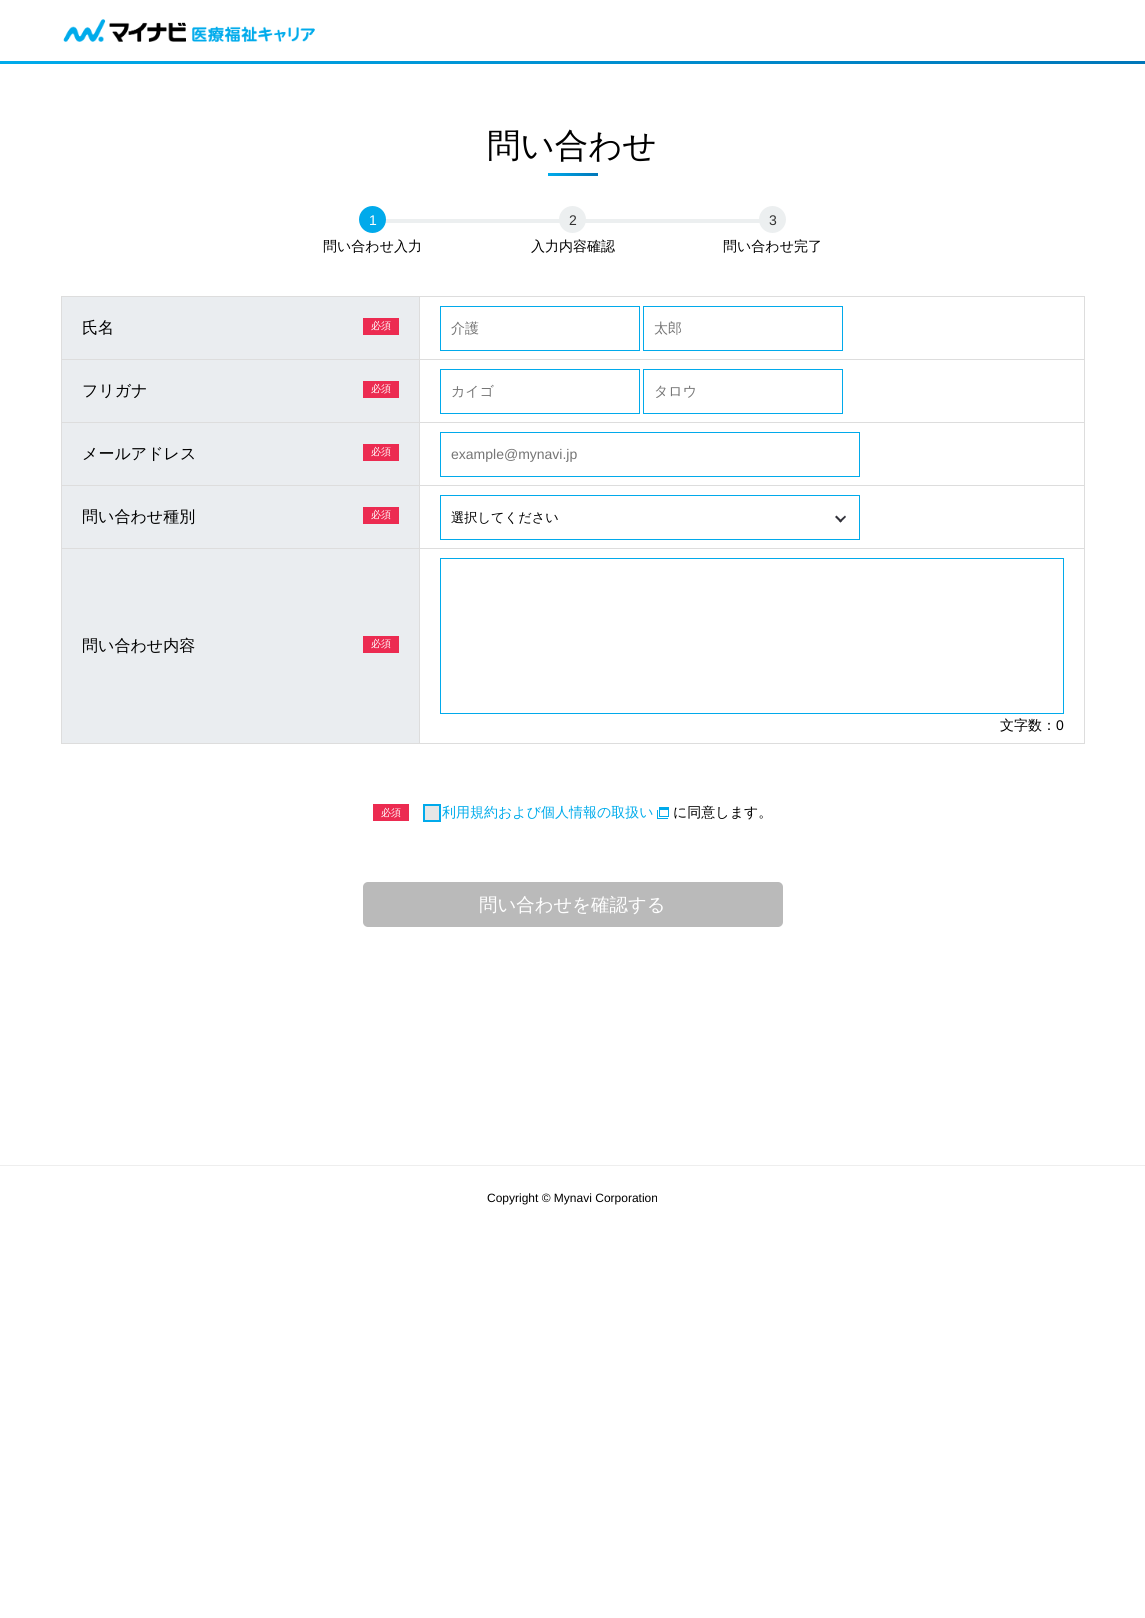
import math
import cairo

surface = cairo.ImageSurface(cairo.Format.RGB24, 1145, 1618)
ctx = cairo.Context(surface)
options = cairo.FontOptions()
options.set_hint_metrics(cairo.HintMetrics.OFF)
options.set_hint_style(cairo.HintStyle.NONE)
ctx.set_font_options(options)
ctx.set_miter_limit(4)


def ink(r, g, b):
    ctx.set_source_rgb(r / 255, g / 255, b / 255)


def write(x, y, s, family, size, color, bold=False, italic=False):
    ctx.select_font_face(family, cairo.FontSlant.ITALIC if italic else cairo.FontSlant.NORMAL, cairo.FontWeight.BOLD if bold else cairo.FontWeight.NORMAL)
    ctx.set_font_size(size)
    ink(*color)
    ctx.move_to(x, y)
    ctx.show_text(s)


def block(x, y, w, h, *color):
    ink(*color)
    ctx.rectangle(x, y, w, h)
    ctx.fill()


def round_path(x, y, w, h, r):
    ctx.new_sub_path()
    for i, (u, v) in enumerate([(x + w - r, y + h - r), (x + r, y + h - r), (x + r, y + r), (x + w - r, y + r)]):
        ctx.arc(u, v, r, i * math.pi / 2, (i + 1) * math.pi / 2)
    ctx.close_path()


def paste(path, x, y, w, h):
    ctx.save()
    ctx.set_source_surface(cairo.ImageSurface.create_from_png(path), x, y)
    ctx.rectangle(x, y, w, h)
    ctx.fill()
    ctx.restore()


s1 = dict(family="WenQuanYi Zen Hei Medium", size=33.5, color=(0, 0, 0))
s2 = dict(family="Liberation Sans", size=14, color=(255, 255, 255))
s3 = dict(family="WenQuanYi Zen Hei Medium", size=14, color=(0, 0, 0))
s4 = dict(family="Liberation Sans", size=14, color=(51, 51, 51))
s5 = dict(family="WenQuanYi Zen Hei Medium", size=16, color=(0, 0, 0))
s6 = dict(family="WenQuanYi Zen Hei Medium", size=10, color=(255, 255, 255))
s7 = dict(family="WenQuanYi Zen Hei Medium", size=14, color=(117, 117, 117))
s8 = dict(family="Liberation Sans", size=14, color=(117, 117, 117))
s9 = dict(family="WenQuanYi Zen Hei Medium", size=13.25, color=(0, 0, 0))
s10 = dict(family="Liberation Sans", size=14, color=(0, 0, 0))
s11 = dict(family="WenQuanYi Zen Hei Medium", size=14, color=(0, 171, 235))
s12 = dict(family="WenQuanYi Zen Hei Medium", size=18.4, color=(255, 255, 255))
s13 = dict(family="Liberation Sans", size=12, color=(0, 0, 0))

ink(255, 255, 255)
ctx.paint()
paste("pic1.png", 63, 19, 252, 23)
gradient = cairo.LinearGradient(0, 63, 1145, 62)
gradient.add_color_stop_rgba(0, 0, 0.671, 0.922, 1)
gradient.add_color_stop_rgba(1, 0, 0.463, 0.725, 1)
ctx.set_source(gradient)
ctx.rectangle(0, 61, 1145, 3)
ctx.fill()
write(487, 157, "問い合わせ", **s1)
gradient = cairo.LinearGradient(548, 175, 598, 175)
gradient.add_color_stop_rgba(0, 0, 0.671, 0.922, 1)
gradient.add_color_stop_rgba(1, 0, 0.463, 0.725, 1)
ctx.set_source(gradient)
ctx.rectangle(548, 173, 50, 3)
ctx.fill()
block(385, 219, 175, 4, 236, 239, 240)
ink(1, 170, 235)
ctx.arc(372.5, 219.5, 13.5, 0, 2 * math.pi)
ctx.fill()
write(369, 225, "1", **s2)
write(323, 251, "問い合わせ入力", **s3)
block(585, 219, 175, 4, 236, 239, 240)
ctx.new_path()
ctx.arc(572.5, 219.5, 13.5, 0, 2 * math.pi)
ctx.fill()
write(569, 225, "2", **s4)
write(531, 251, "入力内容確認", **s3)
ink(236, 239, 240)
ctx.new_path()
ctx.arc(772.5, 219.5, 13.5, 0, 2 * math.pi)
ctx.fill()
write(769, 225, "3", **s4)
write(723, 251, "問い合わせ完了", **s3)
block(62, 297, 357, 62, 234, 237, 240)
block(419, 296, 666, 1, 221, 221, 221)
block(419, 359, 666, 1, 221, 221, 221)
block(419, 422, 666, 1, 221, 221, 221)
block(419, 485, 666, 1, 221, 221, 221)
block(419, 548, 666, 1, 221, 221, 221)
block(1084, 548, 1, 196, 221, 221, 221)
block(419, 743, 666, 1, 221, 221, 221)
block(419, 548, 1, 196, 221, 221, 221)
block(61, 548, 359, 1, 221, 221, 221)
block(419, 485, 1, 64, 221, 221, 221)
block(61, 485, 359, 1, 221, 221, 221)
block(419, 422, 1, 64, 221, 221, 221)
block(61, 422, 359, 1, 221, 221, 221)
block(419, 359, 1, 64, 221, 221, 221)
block(61, 359, 359, 1, 221, 221, 221)
block(419, 296, 1, 64, 221, 221, 221)
block(61, 296, 359, 1, 221, 221, 221)
block(61, 743, 359, 1, 221, 221, 221)
block(61, 548, 1, 196, 221, 221, 221)
block(61, 485, 1, 64, 221, 221, 221)
block(61, 422, 1, 64, 221, 221, 221)
block(61, 359, 1, 64, 221, 221, 221)
block(61, 296, 1, 64, 221, 221, 221)
write(82, 333, "氏名", **s5)
block(363, 318, 36, 17, 236, 43, 81)
write(371, 329, "必須", **s6)
block(1084, 485, 1, 64, 221, 221, 221)
block(1084, 422, 1, 64, 221, 221, 221)
block(1084, 359, 1, 64, 221, 221, 221)
block(1084, 296, 1, 64, 221, 221, 221)
ctx.rectangle(440.5, 306.5, 199, 44)
ink(1, 170, 235)
ctx.set_line_width(1)
ctx.stroke()
write(451, 333, "介護", **s7)
ctx.rectangle(643.5, 306.5, 199, 44)
ink(1, 170, 235)
ctx.stroke()
write(654, 333, "太郎", **s7)
block(62, 360, 357, 62, 234, 237, 240)
write(82, 396, "フリガナ", **s5)
block(363, 381, 36, 17, 236, 43, 81)
write(371, 392, "必須", **s6)
ctx.rectangle(440.5, 369.5, 199, 44)
ink(1, 170, 235)
ctx.stroke()
write(451, 396, "カイゴ", **s7)
ctx.rectangle(643.5, 369.5, 199, 44)
ink(1, 170, 235)
ctx.stroke()
write(654, 396, "タロウ", **s7)
block(62, 423, 357, 62, 234, 237, 240)
write(82, 459, "メールアドレス", **s5)
block(363, 444, 36, 17, 236, 43, 81)
write(371, 455, "必須", **s6)
ctx.rectangle(440.5, 432.5, 419, 44)
ink(1, 170, 235)
ctx.stroke()
write(451, 459, "example@mynavi.jp", **s8)
block(62, 486, 357, 62, 234, 237, 240)
write(82, 522, "問い合わせ種別", **s5)
block(363, 507, 36, 17, 236, 43, 81)
write(371, 518, "必須", **s6)
ctx.rectangle(440.5, 495.5, 419, 44)
ink(1, 170, 235)
ctx.stroke()
write(451, 522, "選択してください", **s9)
ink(50, 50, 58)
ctx.new_path()
ctx.move_to(845, 515.5)
ctx.line_to(846, 517)
ctx.line_to(840.5, 522.5)
ctx.line_to(839, 521)
ctx.close_path()
ctx.fill()
ctx.new_path()
ctx.move_to(836.5, 515.5)
ctx.line_to(842, 521)
ctx.line_to(840.5, 522.5)
ctx.line_to(835, 517)
ctx.close_path()
ctx.fill()
block(62, 549, 357, 194, 234, 237, 240)
write(82, 651, "問い合わせ内容", **s5)
block(363, 636, 36, 17, 236, 43, 81)
write(371, 647, "必須", **s6)
ctx.rectangle(440.5, 558.5, 623, 155)
ink(1, 170, 235)
ctx.stroke()
write(1000, 730, "文字数：", **s3)
write(1056, 730, "0", **s10)
block(373, 804, 36, 17, 236, 43, 81)
write(381, 816, "必須", **s6)
ink(230, 230, 230)
ctx.rectangle(424, 805, 16, 16)
ctx.fill_preserve()
ink(1, 170, 235)
ctx.set_line_width(2)
ctx.stroke()
write(442, 817, "利用規約および個人情報の取扱い", **s11)
paste("pic2.png", 657, 807, 12, 12)
write(673, 817, "に同意します。", **s3)
ink(186, 186, 186)
round_path(363, 882, 420, 45, 5)
ctx.fill()
write(479, 911, "問い合わせを確認する", **s12)
block(0, 1165, 1145, 1, 238, 238, 238)
write(487, 1202, "Copyright © Mynavi Corporation", **s13)
surface.write_to_png("screenshot.png")
